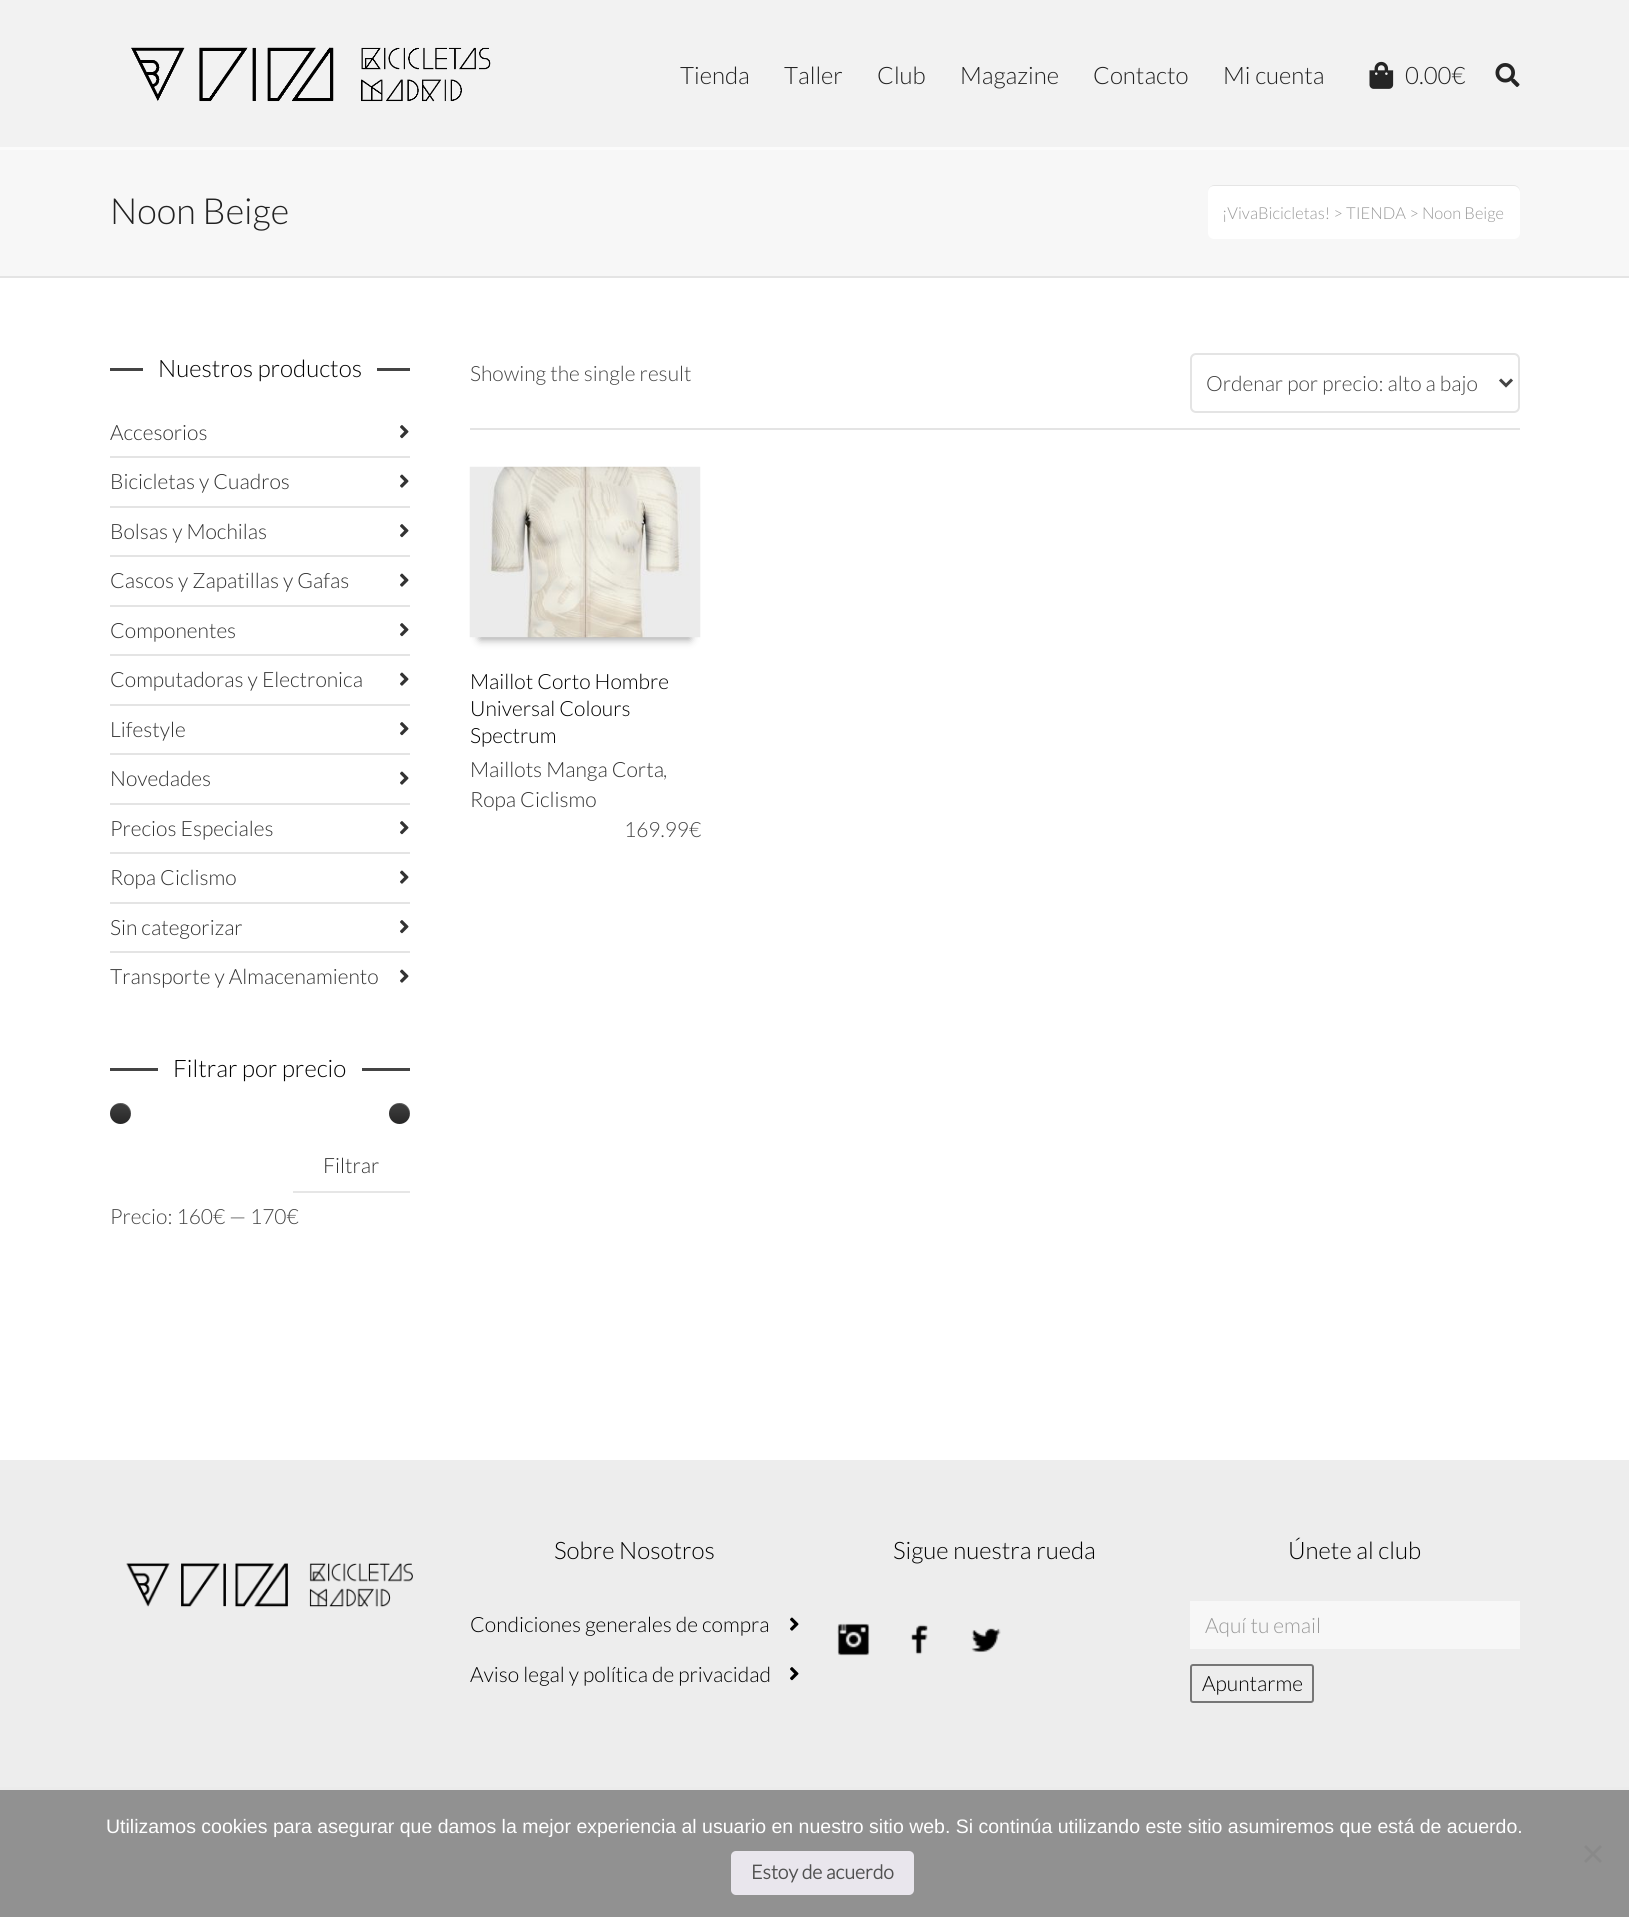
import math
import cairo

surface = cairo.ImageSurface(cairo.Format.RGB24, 1629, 1917)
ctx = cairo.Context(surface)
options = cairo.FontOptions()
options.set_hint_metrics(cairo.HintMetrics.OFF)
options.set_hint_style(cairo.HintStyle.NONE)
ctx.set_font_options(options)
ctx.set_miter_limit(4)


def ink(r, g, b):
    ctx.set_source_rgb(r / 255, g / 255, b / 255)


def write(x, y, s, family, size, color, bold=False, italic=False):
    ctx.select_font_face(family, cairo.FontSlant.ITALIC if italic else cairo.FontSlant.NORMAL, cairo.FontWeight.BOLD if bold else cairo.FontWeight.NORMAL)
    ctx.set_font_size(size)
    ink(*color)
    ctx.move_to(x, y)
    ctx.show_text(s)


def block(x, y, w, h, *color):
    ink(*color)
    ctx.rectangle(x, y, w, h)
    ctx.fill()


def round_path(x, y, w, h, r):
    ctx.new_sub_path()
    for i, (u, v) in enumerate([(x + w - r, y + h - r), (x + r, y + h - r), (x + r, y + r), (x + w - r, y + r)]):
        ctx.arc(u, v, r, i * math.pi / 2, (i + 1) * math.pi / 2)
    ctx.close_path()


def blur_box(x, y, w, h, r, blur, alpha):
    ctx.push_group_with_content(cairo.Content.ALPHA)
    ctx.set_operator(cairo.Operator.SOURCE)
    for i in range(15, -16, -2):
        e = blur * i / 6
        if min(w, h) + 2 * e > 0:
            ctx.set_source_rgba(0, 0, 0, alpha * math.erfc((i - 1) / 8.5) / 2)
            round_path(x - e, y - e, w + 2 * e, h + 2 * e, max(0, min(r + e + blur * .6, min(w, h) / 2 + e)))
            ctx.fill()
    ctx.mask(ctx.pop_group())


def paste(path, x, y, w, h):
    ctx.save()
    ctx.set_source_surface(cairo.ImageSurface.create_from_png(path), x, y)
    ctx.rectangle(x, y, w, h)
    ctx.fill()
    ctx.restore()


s1 = dict(family="Lato Light", size=24, color=(34, 34, 34))
s2 = dict(family="Lato Light", size=36, color=(34, 34, 34))
s3 = dict(family="Lato Light", size=16.5, color=(153, 153, 153))
s4 = dict(family="Lato Light", size=24, color=(0, 0, 0))
s5 = dict(family="Lato Light", size=21, color=(51, 51, 51))
s6 = dict(family="Lato Light", size=21, color=(68, 68, 68))
s7 = dict(family="Lato Light", size=21, color=(0, 0, 0))
s8 = dict(family="Lato Light", size=21, color=(153, 153, 153))
s9 = dict(family="Liberation Sans", size=19.5, color=(255, 255, 255))
s10 = dict(family="Lato", size=19.5, color=(81, 81, 81), bold=True)

ink(242, 242, 242)
ctx.paint()
paste("pic1.png", 131, 47, 360, 55)
write(680, 84, "Tienda", **s1)
write(784, 84, "Taller", **s1)
write(877, 84, "Club", **s1)
write(960, 84, "Magazine", **s1)
write(1093, 84, "Contacto", **s1)
write(1223, 84, "Mi cuenta", **s1)
paste("pic2.png", 1369, 61, 25, 28)
write(1405, 84, "0.00€", **s1)
paste("pic3.png", 1495, 63, 25, 24)
block(0, 278, 1629, 1182, 255, 255, 255)
block(0, 150, 1629, 126, 247, 247, 247)
block(0, 147, 1629, 3, 251, 251, 251)
block(0, 276, 1629, 2, 228, 228, 228)
write(110, 224, "Noon Beige", **s2)
ink(255, 255, 255)
round_path(1208, 185, 312, 54, 6)
ctx.fill()
ink(229, 229, 229)
ctx.new_path()
ctx.move_to(1214, 186)
ctx.line_to(1514, 186)
ctx.curve_to(1517, 186, 1520, 189, 1520, 192)
ctx.line_to(1520, 191)
ctx.curve_to(1520, 188, 1517, 185, 1514, 185)
ctx.line_to(1214, 185)
ctx.curve_to(1211, 185, 1208, 188, 1208, 191)
ctx.line_to(1208, 192)
ctx.curve_to(1208, 189, 1210, 186, 1214, 186)
ctx.close_path()
ctx.fill()
write(1222, 219, "¡VivaBicicletas! > TIENDA > Noon Beige", **s3)
block(110, 368, 300, 3, 68, 68, 68)
block(143, 368, 234, 3, 255, 255, 255)
write(158, 377, "Nuestros productos", **s4)
write(110, 440, "Accesorios", **s5)
paste("pic4.png", 400, 425, 9, 14)
block(110, 456, 300, 2, 228, 228, 228)
write(110, 489, "Bicicletas y Cuadros", **s5)
paste("pic5.png", 400, 474, 9, 14)
block(110, 506, 300, 2, 228, 228, 228)
write(110, 539, "Bolsas y Mochilas", **s5)
paste("pic4.png", 400, 524, 9, 14)
block(110, 555, 300, 2, 228, 228, 228)
write(110, 588, "Cascos y Zapatillas y Gafas", **s5)
paste("pic5.png", 400, 573, 9, 14)
block(110, 605, 300, 2, 228, 228, 228)
write(110, 638, "Componentes", **s5)
paste("pic4.png", 400, 623, 9, 14)
block(110, 654, 300, 2, 228, 228, 228)
write(110, 687, "Computadoras y Electronica", **s5)
paste("pic5.png", 400, 672, 9, 14)
block(110, 704, 300, 2, 228, 228, 228)
write(110, 737, "Lifestyle", **s5)
paste("pic4.png", 400, 722, 9, 14)
block(110, 753, 300, 2, 228, 228, 228)
write(110, 786, "Novedades", **s5)
paste("pic5.png", 400, 771, 9, 14)
block(110, 803, 300, 2, 228, 228, 228)
write(110, 836, "Precios Especiales", **s5)
paste("pic4.png", 400, 821, 9, 14)
block(110, 852, 300, 2, 228, 228, 228)
write(110, 885, "Ropa Ciclismo", **s5)
paste("pic5.png", 400, 870, 9, 14)
block(110, 902, 300, 2, 228, 228, 228)
write(110, 935, "Sin categorizar", **s5)
paste("pic4.png", 400, 920, 9, 14)
block(110, 951, 300, 2, 228, 228, 228)
write(110, 984, "Transporte y Almacenamiento", **s5)
paste("pic5.png", 400, 969, 9, 14)
block(110, 1068, 300, 3, 68, 68, 68)
block(158, 1068, 204, 3, 255, 255, 255)
write(173, 1077, "Filtrar por precio", **s4)
ink(37, 37, 37)
ctx.new_path()
ctx.arc(120.5, 1113.5, 10.5, 0, 2 * math.pi)
ctx.fill()
gradient = cairo.LinearGradient(120, 1128, 120, 1103)
gradient.add_color_stop_rgba(0, 0.004, 0, 0, 0.1)
gradient.add_color_stop_rgba(0.81, 1, 1, 1, 0.1)
ctx.set_source(gradient)
ctx.arc(120.5, 1113.5, 10.5, 0, 2 * math.pi)
ctx.fill()
ctx.set_source_rgba(1, 1, 1, 0.2)
ctx.new_path()
ctx.move_to(120, 1104)
ctx.curve_to(128.5, 1104, 132, 1112, 130, 1118)
ctx.curve_to(135.5, 1106.5, 118.5, 1097, 111.5, 1108)
ctx.curve_to(113.5, 1105.5, 116, 1104, 120, 1104)
ctx.close_path()
ctx.fill()
ink(37, 37, 37)
ctx.arc(399.5, 1113.5, 10.5, 0, 2 * math.pi)
ctx.fill()
gradient = cairo.LinearGradient(399, 1128, 399, 1103)
gradient.add_color_stop_rgba(0, 0.004, 0, 0, 0.1)
gradient.add_color_stop_rgba(0.81, 1, 1, 1, 0.1)
ctx.set_source(gradient)
ctx.arc(399.5, 1113.5, 10.5, 0, 2 * math.pi)
ctx.fill()
ctx.set_source_rgba(1, 1, 1, 0.2)
ctx.new_path()
ctx.move_to(399, 1104)
ctx.curve_to(407.5, 1104, 411, 1112, 409, 1118)
ctx.curve_to(414.5, 1106.5, 397.5, 1097, 390.5, 1108)
ctx.curve_to(392.5, 1105.5, 395, 1104, 399, 1104)
ctx.close_path()
ctx.fill()
ink(230, 230, 230)
ctx.new_path()
ctx.move_to(293, 1191)
ctx.line_to(293, 1193)
ctx.line_to(410, 1193)
ctx.line_to(410, 1142)
ctx.line_to(410, 1191)
ctx.close_path()
ctx.fill()
write(323, 1173, "Filtrar", **s5)
write(110, 1224, "Precio: 160€ — 170€", **s6)
write(470, 381, "Showing the single result", **s6)
round_path(1191, 354, 328, 58, 5)
ink(228, 228, 228)
ctx.stroke()
ctx.new_path()
ctx.move_to(1500, 379.5)
ctx.line_to(1506, 385.5)
ctx.line_to(1512, 379.5)
ink(68, 68, 68)
ctx.set_line_width(3)
ctx.stroke()
write(1206, 391, "Ordenar por precio: alto a bajo", **s6)
block(470, 428, 1050, 2, 228, 228, 228)
ink(153, 153, 153)
blur_box(480, 489, 210, 150, 0, 4.5, 1)
paste("pic6.png", 469, 466, 232, 172)
write(470, 689, "Maillot Corto Hombre", **s7)
write(470, 716, "Universal Colours", **s7)
write(470, 743, "Spectrum", **s7)
write(470, 777, "Maillots Manga Corta", **s5)
write(663, 777, ",", **s6)
write(470, 807, "Ropa Ciclismo", **s5)
write(624, 837, "169.99€", **s6)
block(0, 1460, 1629, 327, 237, 237, 237)
write(554, 1559, "Sobre Nosotros", **s4)
write(470, 1632, "Condiciones generales de compra", **s7)
paste("pic7.png", 790, 1617, 9, 14)
write(470, 1682, "Aviso legal y política de privacidad", **s7)
paste("pic8.png", 790, 1667, 9, 14)
write(893, 1559, "Sigue nuestra rueda", **s4)
paste("pic9.png", 837, 1623, 33, 33)
paste("pic10.png", 910, 1624, 18, 31)
paste("pic11.png", 971, 1628, 30, 25)
write(1288, 1559, "Únete al club", **s4)
block(1190, 1601, 330, 48, 247, 247, 247)
write(1205, 1633, "Aquí tu email", **s8)
round_path(1191, 1665, 122, 37, 2)
ink(118, 118, 118)
ctx.set_line_width(2)
ctx.stroke()
write(1202, 1691, "Apuntarme", **s7)
paste("pic12.png", 126, 1563, 287, 45)
block(0, 1787, 1629, 3, 235, 235, 235)
block(0, 1790, 1629, 127, 145, 145, 145)
write(106, 1833, "Utilizamos cookies para asegurar que damos la mejor experiencia al usuario en nuestro sitio web. Si continúa utilizando este sitio asumiremos que está de acuerdo.", **s9)
ink(137, 137, 137)
ctx.new_path()
ctx.move_to(1600, 1845)
ctx.line_to(1602, 1847)
ctx.line_to(1586, 1863)
ctx.line_to(1584, 1861)
ctx.close_path()
ctx.fill()
ctx.new_path()
ctx.move_to(1584, 1847)
ctx.line_to(1586, 1845)
ctx.line_to(1602, 1861)
ctx.line_to(1600, 1863)
ctx.close_path()
ctx.fill()
ink(233, 230, 237)
round_path(731, 1851, 183, 44, 5)
ctx.fill()
write(751, 1879, "Estoy de acuerdo", **s10)
surface.write_to_png("screenshot.png")
